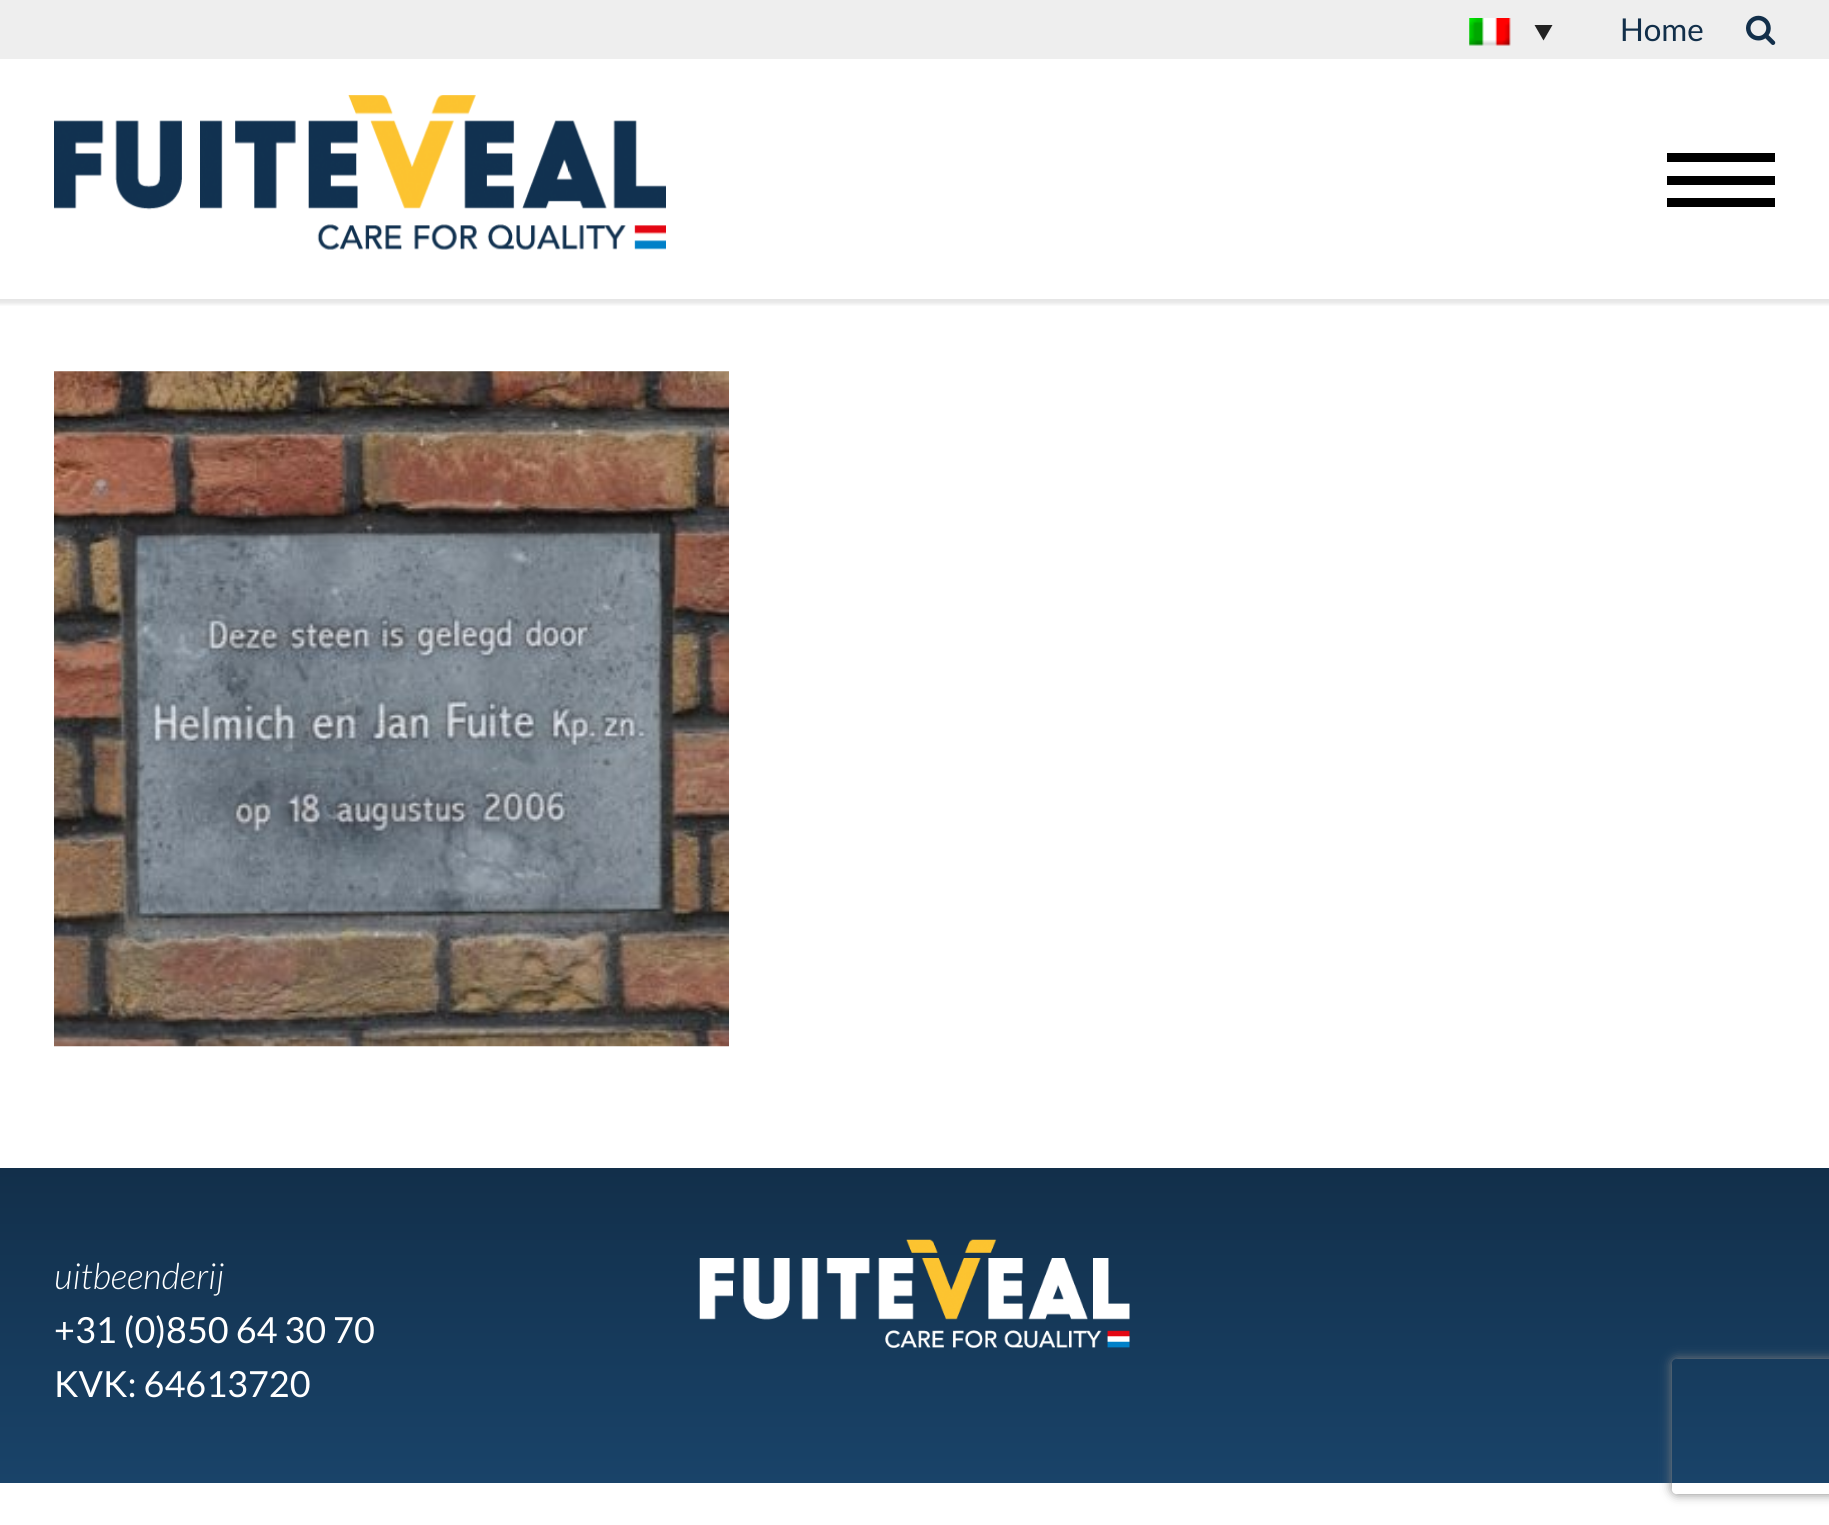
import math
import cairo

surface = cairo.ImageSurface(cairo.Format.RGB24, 1829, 1525)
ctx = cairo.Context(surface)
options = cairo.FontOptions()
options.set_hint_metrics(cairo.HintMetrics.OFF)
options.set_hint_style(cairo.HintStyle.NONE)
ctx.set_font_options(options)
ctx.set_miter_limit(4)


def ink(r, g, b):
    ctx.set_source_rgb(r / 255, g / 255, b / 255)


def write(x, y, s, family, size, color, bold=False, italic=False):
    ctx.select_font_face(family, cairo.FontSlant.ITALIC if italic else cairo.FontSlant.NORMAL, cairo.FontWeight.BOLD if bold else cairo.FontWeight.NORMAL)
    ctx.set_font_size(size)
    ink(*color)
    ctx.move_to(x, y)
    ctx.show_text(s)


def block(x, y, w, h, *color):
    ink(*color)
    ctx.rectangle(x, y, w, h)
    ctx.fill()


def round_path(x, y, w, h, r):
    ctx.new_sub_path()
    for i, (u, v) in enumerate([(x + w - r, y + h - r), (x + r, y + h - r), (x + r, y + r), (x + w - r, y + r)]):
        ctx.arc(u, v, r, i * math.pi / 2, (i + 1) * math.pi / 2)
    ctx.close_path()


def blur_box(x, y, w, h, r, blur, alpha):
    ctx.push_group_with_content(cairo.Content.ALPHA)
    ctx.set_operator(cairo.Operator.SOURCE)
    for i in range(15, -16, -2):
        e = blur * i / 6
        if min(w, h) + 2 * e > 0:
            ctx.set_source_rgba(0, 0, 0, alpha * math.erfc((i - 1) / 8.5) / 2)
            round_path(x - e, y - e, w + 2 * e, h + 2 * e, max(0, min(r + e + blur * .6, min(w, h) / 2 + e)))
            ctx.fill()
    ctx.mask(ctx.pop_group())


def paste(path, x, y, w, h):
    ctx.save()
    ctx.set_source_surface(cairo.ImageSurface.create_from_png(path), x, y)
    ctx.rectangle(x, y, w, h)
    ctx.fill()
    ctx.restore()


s1 = dict(family="Lato", size=31.5, color=(18, 47, 74))
s2 = dict(family="Lato Light", size=36, color=(255, 255, 255), italic=True)
s3 = dict(family="Lato", size=36, color=(255, 255, 255))

ink(255, 255, 255)
ctx.paint()
ctx.save()
ctx.rectangle(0, 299, 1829, 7)
ctx.clip()
ink(0, 0, 0)
blur_box(-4, -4, 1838, 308, 0, 2, 0.1)
ctx.restore()
block(0, 0, 1829, 59, 238, 238, 238)
paste("pic1.png", 1469, 18, 42, 28)
ink(34, 34, 34)
ctx.new_path()
ctx.move_to(1534.5, 25)
ctx.line_to(1552.5, 25)
ctx.line_to(1543.5, 40.5)
ctx.close_path()
ctx.fill()
write(1620, 41, "Home", **s1)
paste("pic2.png", 1746, 15, 30, 30)
paste("pic3.png", 54, 95, 612, 155)
block(1667, 153, 108, 9, 0, 0, 0)
block(1667, 176, 108, 9, 0, 0, 0)
block(1667, 198, 108, 9, 0, 0, 0)
paste("pic4.png", 54, 371, 675, 676)
gradient = cairo.LinearGradient(915, 1168, 915, 1483)
gradient.add_color_stop_rgba(0, 0.071, 0.184, 0.29, 1)
gradient.add_color_stop_rgba(1, 0.098, 0.263, 0.412, 1)
ctx.set_source(gradient)
ctx.rectangle(0, 1168, 1829, 315)
ctx.fill()
write(54, 1289, "uitbeenderij", **s2)
write(54, 1343, "+31 (0)850 64 30 70", **s3)
write(54, 1397, "KVK: 64613720", **s3)
paste("pic5.png", 699, 1239, 431, 109)
ctx.save()
ctx.set_fill_rule(cairo.FillRule.EVEN_ODD)
ctx.new_path()
ctx.move_to(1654, 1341)
ctx.line_to(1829, 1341)
ctx.line_to(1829, 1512)
ctx.line_to(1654, 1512)
ctx.close_path()
ctx.move_to(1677, 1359)
ctx.line_to(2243, 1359)
ctx.curve_to(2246, 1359, 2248, 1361, 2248, 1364)
ctx.line_to(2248, 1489)
ctx.curve_to(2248, 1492, 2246, 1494, 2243, 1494)
ctx.line_to(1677, 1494)
ctx.curve_to(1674, 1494, 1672, 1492, 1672, 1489)
ctx.line_to(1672, 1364)
ctx.curve_to(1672, 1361, 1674, 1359, 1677, 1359)
ctx.close_path()
ctx.clip()
ink(128, 128, 128)
blur_box(1672, 1359, 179, 135, 5, 5.5, 1)
ctx.restore()
surface.write_to_png("screenshot.png")
